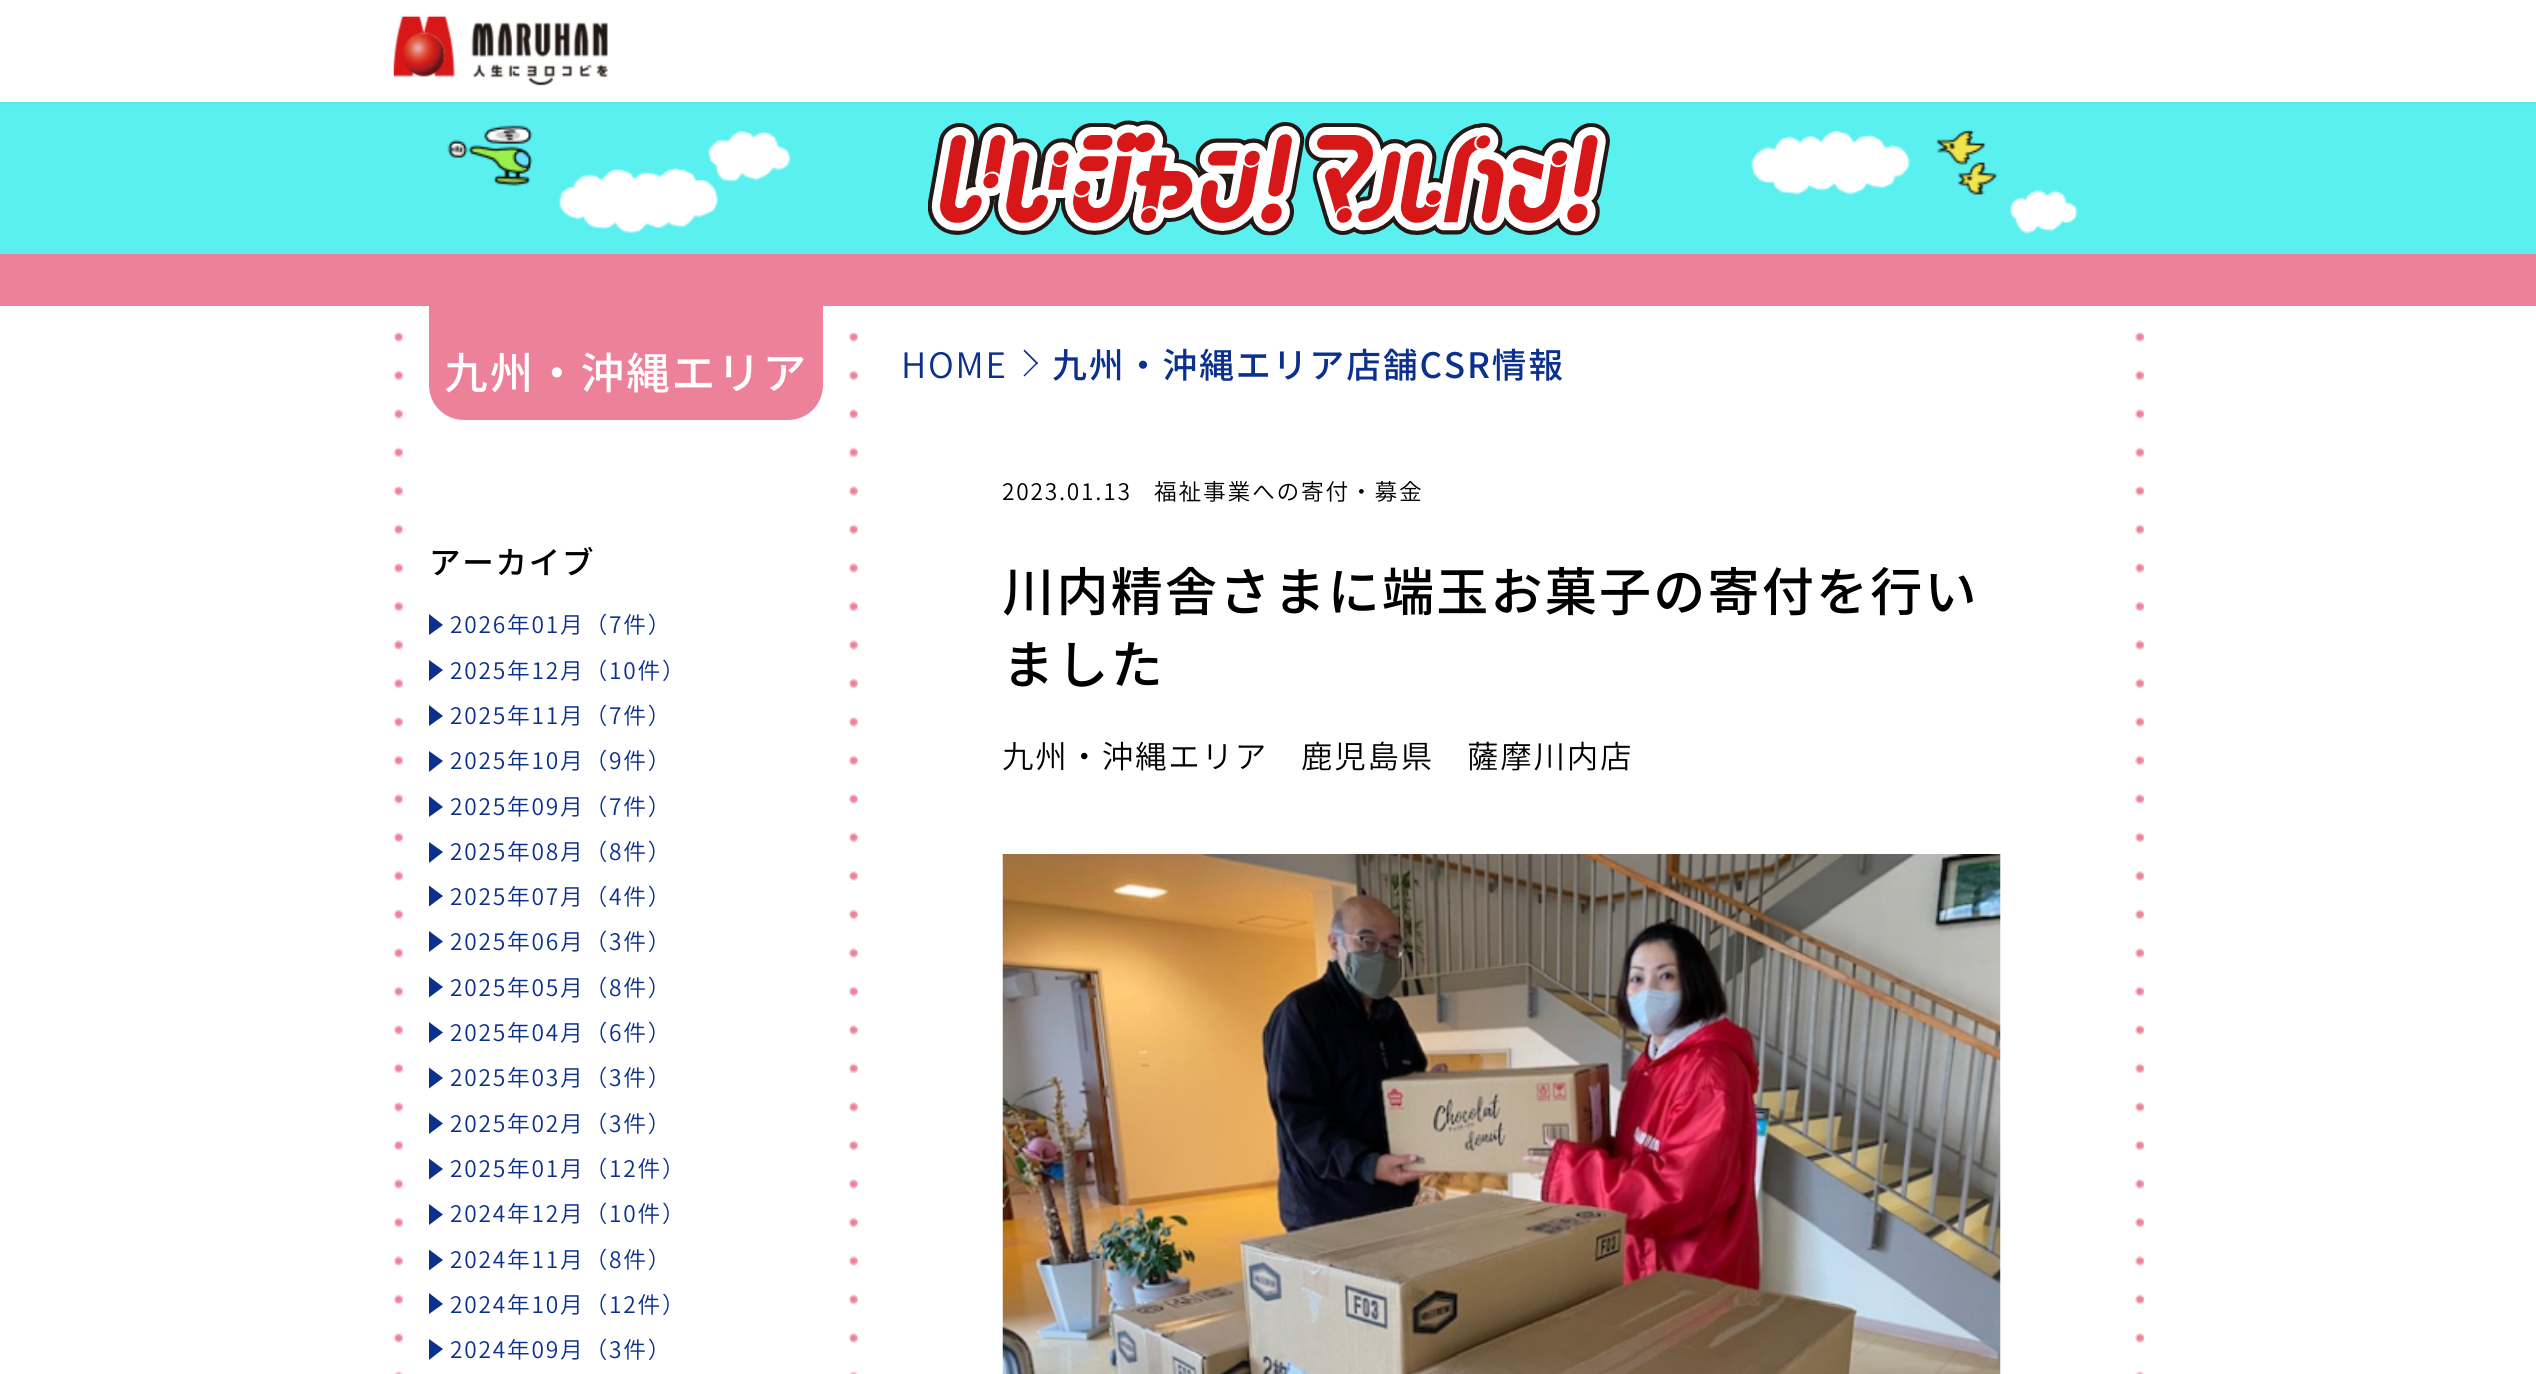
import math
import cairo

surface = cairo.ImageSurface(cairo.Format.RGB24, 2536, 1374)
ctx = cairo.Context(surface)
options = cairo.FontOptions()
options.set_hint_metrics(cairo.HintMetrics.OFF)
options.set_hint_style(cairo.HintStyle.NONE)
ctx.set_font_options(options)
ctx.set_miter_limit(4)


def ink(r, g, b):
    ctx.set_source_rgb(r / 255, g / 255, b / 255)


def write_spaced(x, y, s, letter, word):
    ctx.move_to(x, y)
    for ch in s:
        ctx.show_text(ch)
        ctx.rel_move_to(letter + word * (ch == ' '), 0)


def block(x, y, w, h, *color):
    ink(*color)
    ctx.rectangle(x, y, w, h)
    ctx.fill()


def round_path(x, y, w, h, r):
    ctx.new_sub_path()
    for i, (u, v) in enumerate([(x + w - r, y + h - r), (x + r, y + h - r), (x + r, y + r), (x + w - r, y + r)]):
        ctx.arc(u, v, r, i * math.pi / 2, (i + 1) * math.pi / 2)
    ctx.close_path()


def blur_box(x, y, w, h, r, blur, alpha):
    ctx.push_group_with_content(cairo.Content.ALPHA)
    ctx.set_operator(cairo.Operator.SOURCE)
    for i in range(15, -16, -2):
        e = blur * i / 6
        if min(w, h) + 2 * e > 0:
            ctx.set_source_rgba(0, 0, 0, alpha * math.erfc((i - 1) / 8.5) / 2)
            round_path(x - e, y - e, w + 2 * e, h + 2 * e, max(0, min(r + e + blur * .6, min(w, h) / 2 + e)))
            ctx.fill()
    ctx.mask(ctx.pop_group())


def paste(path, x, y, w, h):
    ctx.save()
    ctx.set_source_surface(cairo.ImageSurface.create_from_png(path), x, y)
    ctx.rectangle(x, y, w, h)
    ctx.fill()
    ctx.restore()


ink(255, 255, 255)
ctx.paint()
block(0, 102, 2536, 152, 90, 240, 240)
paste("pic2.png", 393, 102, 1751, 132)
ink(0, 0, 0)
blur_box(0, 0, 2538, 102, 0, 2, 0.1)
block(0, 0, 2536, 102, 255, 255, 255)
paste("pic1.png", 393, 15, 215, 71)
paste("pic3.png", 928, 120, 682, 116)
block(0, 254, 2536, 52, 238, 129, 154)
ctx.new_path()
ctx.move_to(429, 306)
ctx.line_to(823, 306)
ctx.line_to(823, 385)
ctx.curve_to(823, 404.5, 807.5, 420, 788, 420)
ctx.line_to(464, 420)
ctx.curve_to(444.5, 420, 429, 404.5, 429, 385)
ctx.close_path()
ctx.fill()
ctx.select_font_face("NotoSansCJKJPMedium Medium")
ctx.set_font_size(43.75)
ink(255, 255, 255)
write_spaced(444, 389, "九州・沖縄エリア", 1.75, 0)
paste("pic4.png", 2135, 332, 9, 1042)
ctx.select_font_face("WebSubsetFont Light")
ctx.set_font_size(35)
ink(11, 48, 142)
write_spaced(901, 378, "HOME", 1.75, 0)
ctx.new_path()
ctx.move_to(1024.5, 349.5)
ctx.line_to(1038, 363)
ctx.line_to(1037, 364.5)
ctx.line_to(1023.5, 351)
ctx.close_path()
ctx.fill()
ctx.new_path()
ctx.move_to(1037, 362)
ctx.line_to(1038, 363)
ctx.line_to(1024.5, 376.5)
ctx.line_to(1023.5, 375.5)
ctx.close_path()
ctx.fill()
ctx.select_font_face("NotoSansCJKJPMedium Medium")
write_spaced(1052, 378, "九州・沖縄エリア店舗CSR情報", 1.75, 0)
ctx.select_font_face("WebSubsetFont Light")
ctx.set_font_size(22.75)
ink(0, 0, 0)
write_spaced(1002, 500, "2023.01.13", 1.75, 0)
write_spaced(1154, 500, "福祉事業への寄付・募金", 1.75, 0)
ctx.select_font_face("NotoSansCJKJPMedium Medium")
ctx.set_font_size(52.5)
write_spaced(1002, 611, "川内精舎さまに端玉お菓子の寄付を行い", 1.75, 0)
write_spaced(1002, 684, "ました", 1.75, 0)
ctx.select_font_face("WebSubsetFont Light")
ctx.set_font_size(31.5)
write_spaced(1002, 768, "九州・沖縄エリア", 1.75, 0)
write_spaced(1301, 768, "鹿児島県", 1.75, 0)
write_spaced(1467, 768, "薩摩川内店", 1.75, 0)
paste("pic5.png", 1002, 854, 999, 520)
paste("pic6.png", 393, 332, 10, 1042)
paste("pic7.png", 848, 332, 10, 1042)
ctx.select_font_face("NotoSansCJKJPMedium Medium")
write_spaced(429, 574, "アーカイブ", 1.75, 0)
ink(11, 48, 142)
ctx.new_path()
ctx.move_to(429, 635)
ctx.line_to(429, 614)
ctx.line_to(443, 625)
ctx.close_path()
ctx.fill()
ctx.select_font_face("WebSubsetFont Light")
ctx.set_font_size(22.75)
write_spaced(450, 633, "2026年01月（7件）", 1.75, 0)
ctx.new_path()
ctx.move_to(429, 681)
ctx.line_to(429, 660)
ctx.line_to(443, 670)
ctx.close_path()
ctx.fill()
write_spaced(450, 679, "2025年12月（10件）", 1.75, 0)
ctx.new_path()
ctx.move_to(429, 726)
ctx.line_to(429, 705)
ctx.line_to(443, 716)
ctx.close_path()
ctx.fill()
write_spaced(450, 724, "2025年11月（7件）", 1.75, 0)
ctx.new_path()
ctx.move_to(429, 772)
ctx.line_to(429, 751)
ctx.line_to(443, 761)
ctx.close_path()
ctx.fill()
write_spaced(450, 769, "2025年10月（9件）", 1.75, 0)
ctx.new_path()
ctx.move_to(429, 817)
ctx.line_to(429, 796)
ctx.line_to(443, 807)
ctx.close_path()
ctx.fill()
write_spaced(450, 815, "2025年09月（7件）", 1.75, 0)
ctx.new_path()
ctx.move_to(429, 863)
ctx.line_to(429, 842)
ctx.line_to(443, 852)
ctx.close_path()
ctx.fill()
write_spaced(450, 860, "2025年08月（8件）", 1.75, 0)
ctx.new_path()
ctx.move_to(429, 906.5)
ctx.line_to(429, 885.5)
ctx.line_to(443, 896)
ctx.close_path()
ctx.fill()
write_spaced(450, 905, "2025年07月（4件）", 1.75, 0)
ctx.new_path()
ctx.move_to(429, 952)
ctx.line_to(429, 931)
ctx.line_to(443, 941.5)
ctx.close_path()
ctx.fill()
write_spaced(450, 950, "2025年06月（3件）", 1.75, 0)
ctx.new_path()
ctx.move_to(429, 997.5)
ctx.line_to(429, 976.5)
ctx.line_to(443, 987)
ctx.close_path()
ctx.fill()
write_spaced(450, 996, "2025年05月（8件）", 1.75, 0)
ctx.new_path()
ctx.move_to(429, 1043)
ctx.line_to(429, 1022)
ctx.line_to(443, 1032.5)
ctx.close_path()
ctx.fill()
write_spaced(450, 1041, "2025年04月（6件）", 1.75, 0)
ctx.new_path()
ctx.move_to(429, 1088.5)
ctx.line_to(429, 1067.5)
ctx.line_to(443, 1078)
ctx.close_path()
ctx.fill()
write_spaced(450, 1086, "2025年03月（3件）", 1.75, 0)
ctx.new_path()
ctx.move_to(429, 1134)
ctx.line_to(429, 1113)
ctx.line_to(443, 1123.5)
ctx.close_path()
ctx.fill()
write_spaced(450, 1132, "2025年02月（3件）", 1.75, 0)
ctx.new_path()
ctx.move_to(429, 1179.5)
ctx.line_to(429, 1158.5)
ctx.line_to(443, 1169)
ctx.close_path()
ctx.fill()
write_spaced(450, 1177, "2025年01月（12件）", 1.75, 0)
ctx.new_path()
ctx.move_to(429, 1225)
ctx.line_to(429, 1204)
ctx.line_to(443, 1214.5)
ctx.close_path()
ctx.fill()
write_spaced(450, 1222, "2024年12月（10件）", 1.75, 0)
ctx.new_path()
ctx.move_to(429, 1270.5)
ctx.line_to(429, 1249.5)
ctx.line_to(443, 1260)
ctx.close_path()
ctx.fill()
write_spaced(450, 1268, "2024年11月（8件）", 1.75, 0)
ctx.new_path()
ctx.move_to(429, 1314)
ctx.line_to(429, 1293)
ctx.line_to(443, 1304)
ctx.close_path()
ctx.fill()
write_spaced(450, 1313, "2024年10月（12件）", 1.75, 0)
ctx.new_path()
ctx.move_to(429, 1360)
ctx.line_to(429, 1339)
ctx.line_to(443, 1349)
ctx.close_path()
ctx.fill()
write_spaced(450, 1358, "2024年09月（3件）", 1.75, 0)
surface.write_to_png("screenshot.png")
